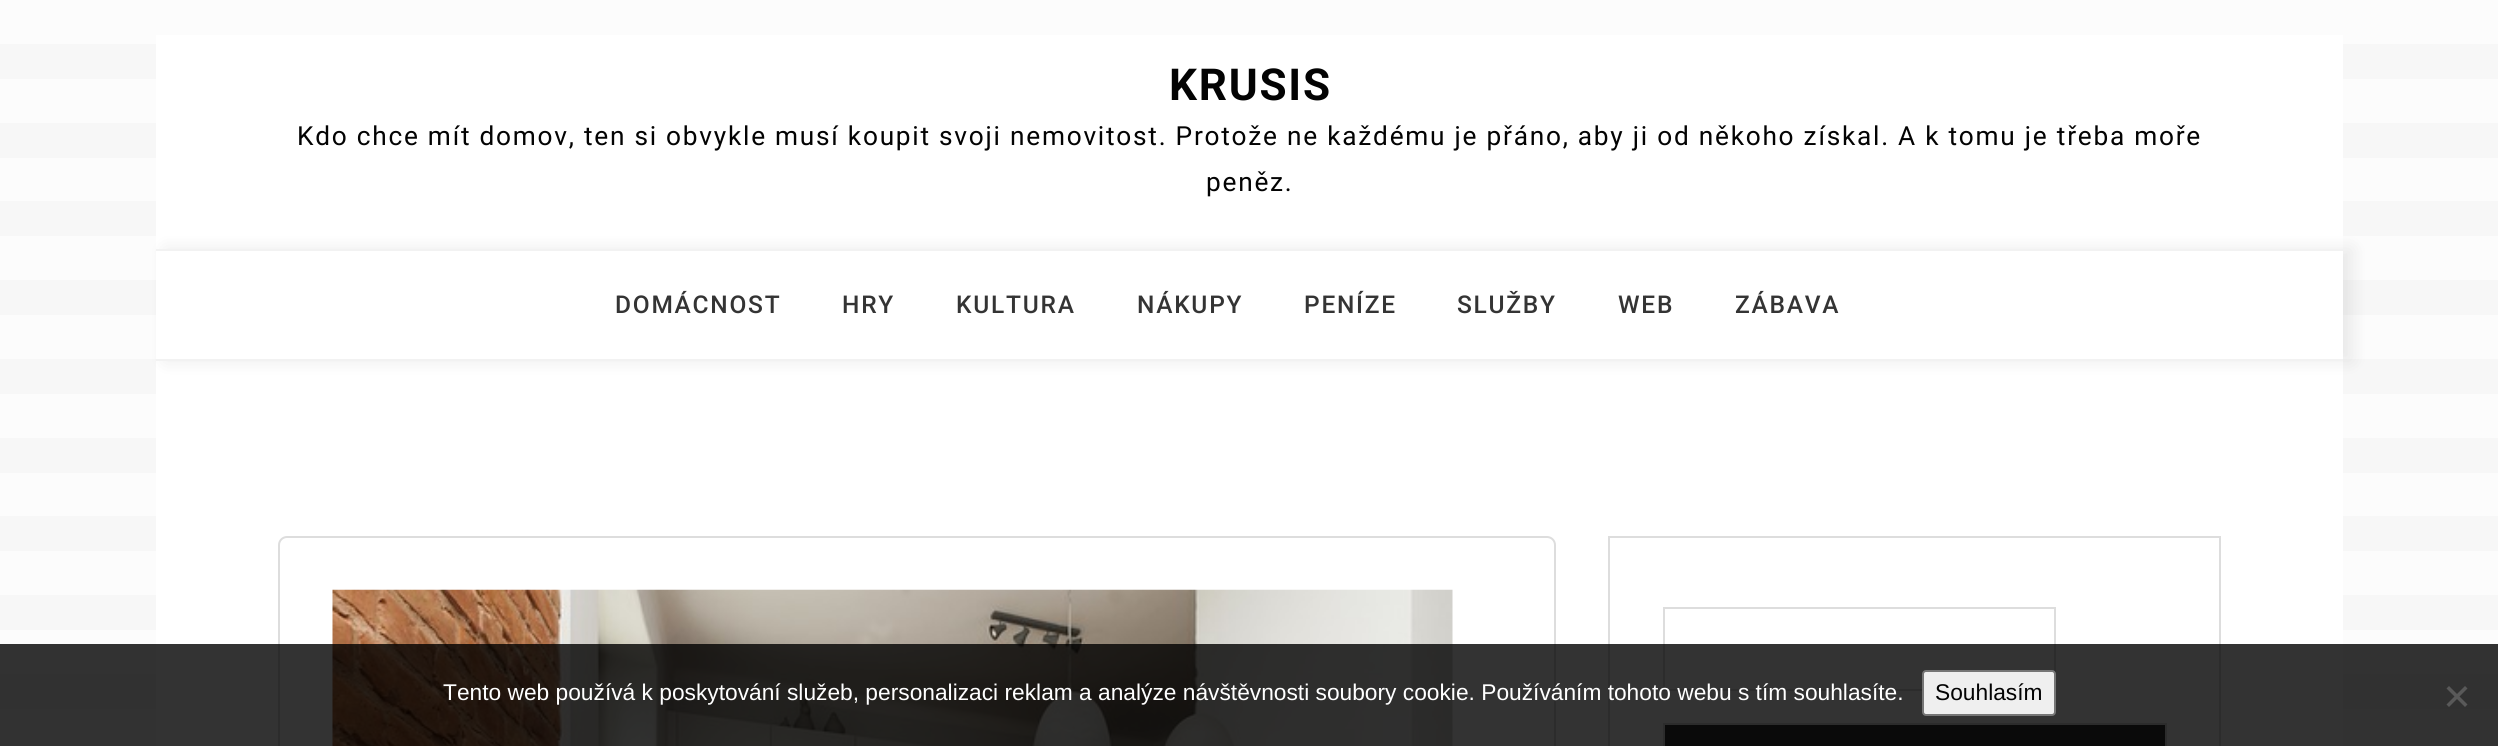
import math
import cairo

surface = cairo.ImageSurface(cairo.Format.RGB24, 2498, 746)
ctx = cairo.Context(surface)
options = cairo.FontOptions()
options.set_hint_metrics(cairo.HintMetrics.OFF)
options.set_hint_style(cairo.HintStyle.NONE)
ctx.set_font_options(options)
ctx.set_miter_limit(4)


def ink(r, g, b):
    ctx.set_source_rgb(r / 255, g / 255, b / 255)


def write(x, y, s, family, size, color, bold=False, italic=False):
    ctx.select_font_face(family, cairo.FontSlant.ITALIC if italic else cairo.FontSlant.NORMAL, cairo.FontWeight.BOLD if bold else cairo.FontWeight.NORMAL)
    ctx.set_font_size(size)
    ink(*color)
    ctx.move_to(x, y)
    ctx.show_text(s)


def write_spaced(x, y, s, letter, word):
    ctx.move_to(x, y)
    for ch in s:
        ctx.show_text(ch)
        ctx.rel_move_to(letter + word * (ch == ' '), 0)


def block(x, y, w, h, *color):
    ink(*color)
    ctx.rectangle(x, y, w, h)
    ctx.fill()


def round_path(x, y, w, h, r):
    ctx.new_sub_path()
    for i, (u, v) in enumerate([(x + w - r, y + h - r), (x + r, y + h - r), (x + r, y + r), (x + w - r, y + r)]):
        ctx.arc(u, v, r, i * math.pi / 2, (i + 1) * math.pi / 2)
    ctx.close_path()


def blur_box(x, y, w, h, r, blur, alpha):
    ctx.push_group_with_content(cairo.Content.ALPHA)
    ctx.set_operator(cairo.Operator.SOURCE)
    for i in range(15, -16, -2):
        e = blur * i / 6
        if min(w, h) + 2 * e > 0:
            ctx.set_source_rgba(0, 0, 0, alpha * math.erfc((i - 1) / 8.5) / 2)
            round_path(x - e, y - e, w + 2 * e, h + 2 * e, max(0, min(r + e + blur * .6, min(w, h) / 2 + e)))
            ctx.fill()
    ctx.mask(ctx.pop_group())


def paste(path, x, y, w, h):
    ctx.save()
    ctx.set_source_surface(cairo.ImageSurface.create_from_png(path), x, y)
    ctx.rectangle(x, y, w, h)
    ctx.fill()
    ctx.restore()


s1 = dict(family="Liberation Sans", size=22.75, color=(255, 255, 255))
s2 = dict(family="Liberation Sans", size=22.75, color=(3, 3, 3))

ink(252, 252, 252)
ctx.paint()
block(0, 44, 2498, 35, 247, 247, 247)
block(0, 123, 2498, 35, 247, 247, 247)
block(0, 201, 2498, 35, 247, 247, 247)
block(0, 280, 2498, 35, 247, 247, 247)
block(0, 359, 2498, 35, 247, 247, 247)
block(0, 438, 2498, 35, 247, 247, 247)
block(0, 516, 2498, 35, 247, 247, 247)
block(0, 595, 2498, 35, 247, 247, 247)
block(0, 674, 2498, 35, 247, 247, 247)
block(156, 35, 2187, 711, 255, 255, 255)
ctx.select_font_face("Roboto", cairo.FontSlant.NORMAL, cairo.FontWeight.BOLD)
ctx.set_font_size(44)
ink(3, 3, 3)
write_spaced(1169, 100, "KRUSIS", 1.75, 0)
ctx.select_font_face("Roboto")
ctx.set_font_size(26.25)
write_spaced(297, 145, "Kdo chce mít domov, ten si obvykle musí koupit svoji nemovitost. Protože ne každému je přáno, aby ji od někoho získal. A k tomu je třeba moře", 1.75, 0)
write_spaced(1206, 191, "peněz.", 1.75, 0)
ink(5, 5, 6)
blur_box(165, 249, 2187, 112, 0, 9, 0.08)
block(156, 251, 2187, 108, 255, 255, 255)
block(156, 249, 2187, 2, 242, 242, 242)
block(156, 359, 2187, 2, 242, 242, 242)
ctx.select_font_face("Roboto Medium")
ctx.set_font_size(24.5)
ink(52, 52, 52)
write_spaced(615, 313, "DOMÁCNOST", 1.75, 0)
write_spaced(842, 313, "HRY", 1.75, 0)
write_spaced(956, 313, "KULTURA", 1.75, 0)
write_spaced(1137, 313, "NÁKUPY", 1.75, 0)
write_spaced(1304, 313, "PENÍZE", 1.75, 0)
write_spaced(1457, 313, "SLUŽBY", 1.75, 0)
write_spaced(1618, 313, "WEB", 1.75, 0)
write_spaced(1735, 313, "ZÁBAVA", 1.75, 0)
round_path(279, 537, 1276, 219, 8)
ink(221, 221, 221)
ctx.stroke()
paste("pic1.png", 332, 589, 1121, 157)
ctx.rectangle(1609, 537, 611, 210)
ctx.stroke()
ctx.rectangle(1664, 608, 391, 82)
ctx.stroke()
ink(51, 51, 51)
ctx.rectangle(1664, 724, 502, 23)
ctx.fill_preserve()
ink(221, 221, 221)
ctx.stroke()
ctx.set_source_rgba(0, 0, 0, 0.8)
ctx.rectangle(0, 644, 2498, 102)
ctx.fill()
write(443, 700, "Tento web používá k poskytování služeb, personalizaci reklam a analýze návštěvnosti soubory cookie. Používáním tohoto webu s tím souhlasíte.", **s1)
ink(239, 239, 239)
round_path(1923, 671, 132, 44, 3)
ctx.fill_preserve()
ink(118, 118, 118)
ctx.stroke()
write(1935, 700, "Souhlasím", **s2)
ink(89, 89, 89)
ctx.new_path()
ctx.move_to(2465, 686)
ctx.line_to(2467.5, 688.5)
ctx.line_to(2449, 707)
ctx.line_to(2446.5, 704.5)
ctx.close_path()
ctx.fill()
ctx.new_path()
ctx.move_to(2446.5, 688.5)
ctx.line_to(2449, 686)
ctx.line_to(2467.5, 704.5)
ctx.line_to(2465, 707)
ctx.close_path()
ctx.fill()
surface.write_to_png("screenshot.png")
